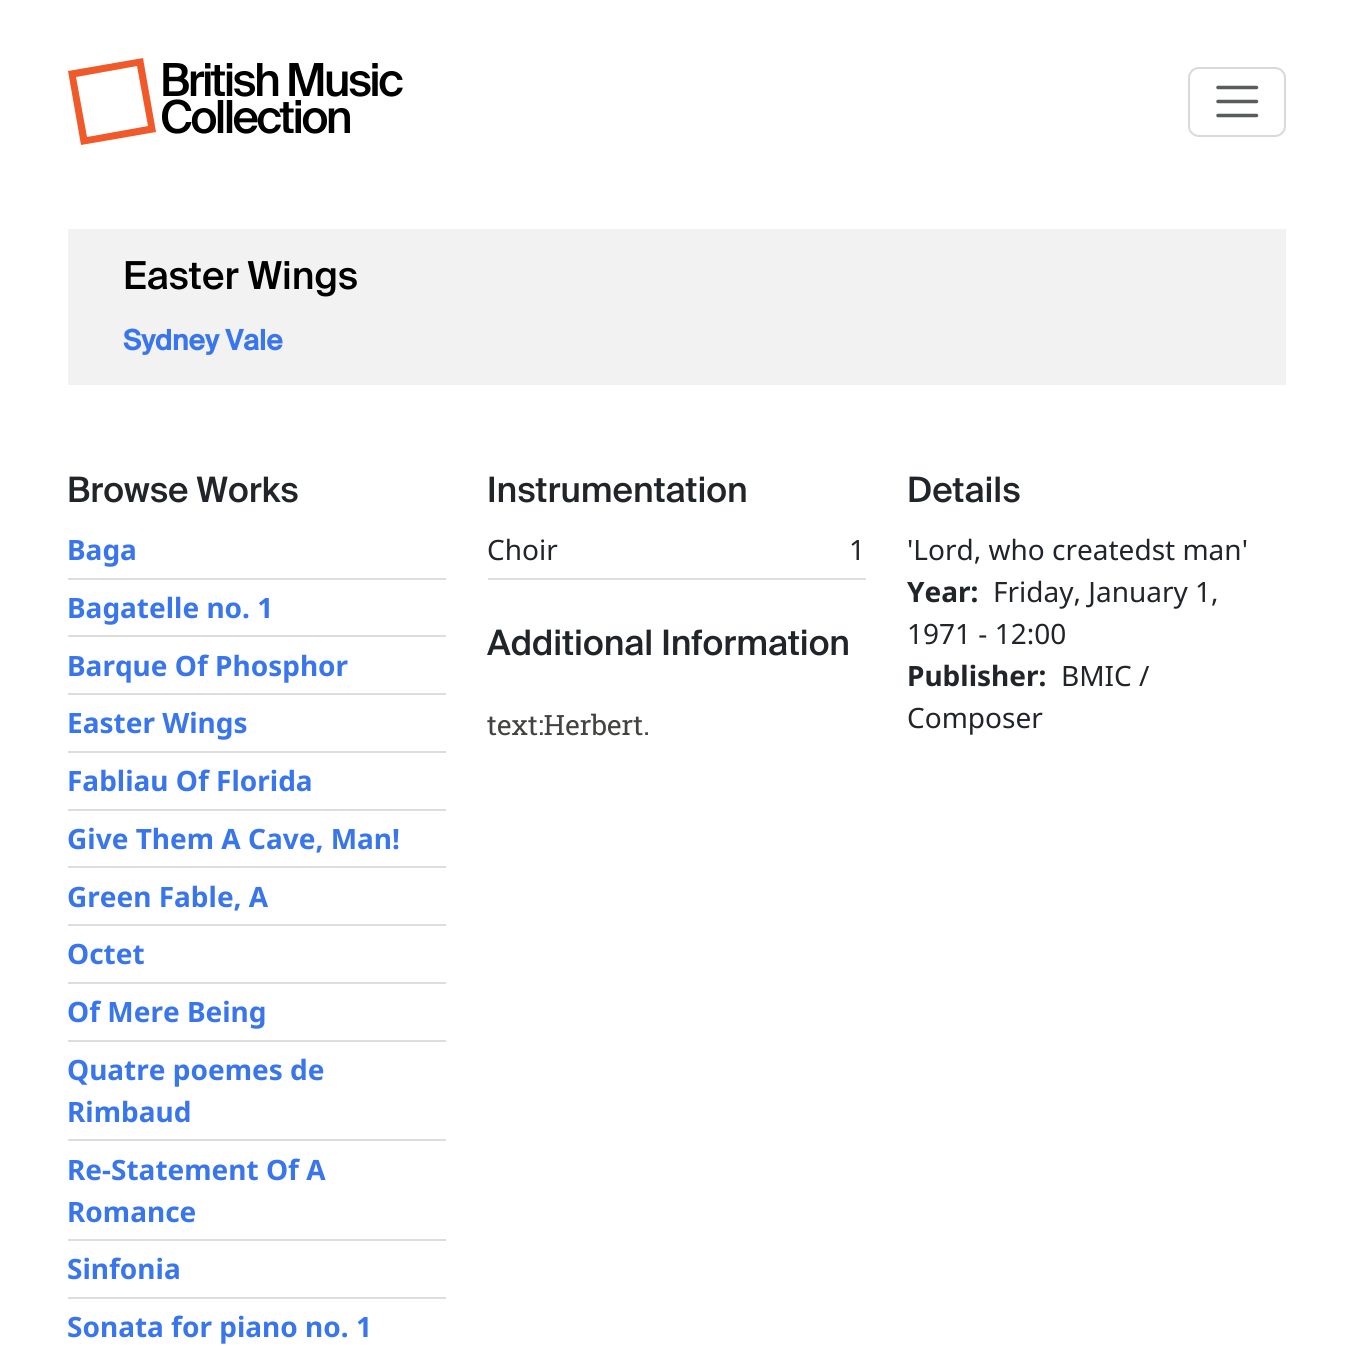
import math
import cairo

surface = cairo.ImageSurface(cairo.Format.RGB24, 1352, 1347)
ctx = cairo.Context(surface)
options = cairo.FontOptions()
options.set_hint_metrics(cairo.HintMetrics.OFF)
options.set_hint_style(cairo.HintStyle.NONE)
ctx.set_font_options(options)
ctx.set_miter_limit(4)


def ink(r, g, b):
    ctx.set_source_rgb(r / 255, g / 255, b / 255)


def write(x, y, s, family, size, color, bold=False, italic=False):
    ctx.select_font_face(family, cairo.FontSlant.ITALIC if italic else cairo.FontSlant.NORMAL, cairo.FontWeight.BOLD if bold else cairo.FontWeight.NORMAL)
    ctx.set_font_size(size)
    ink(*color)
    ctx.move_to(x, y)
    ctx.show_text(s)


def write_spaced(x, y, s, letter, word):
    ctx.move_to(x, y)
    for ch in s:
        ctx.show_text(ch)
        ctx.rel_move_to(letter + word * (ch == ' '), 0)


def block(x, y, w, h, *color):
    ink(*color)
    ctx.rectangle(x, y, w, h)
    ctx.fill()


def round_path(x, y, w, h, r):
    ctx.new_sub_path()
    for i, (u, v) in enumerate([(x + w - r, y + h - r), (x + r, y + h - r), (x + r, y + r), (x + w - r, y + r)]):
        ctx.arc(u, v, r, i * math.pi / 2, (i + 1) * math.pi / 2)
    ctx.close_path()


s1 = dict(family="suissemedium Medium", size=38.5, color=(0, 0, 0))
s2 = dict(family="suissemedium", size=28, color=(58, 118, 235), bold=True)
s3 = dict(family="suissemedium Medium", size=35, color=(33, 37, 41))
s4 = dict(family="Noto Sans", size=28, color=(58, 118, 235), bold=True)
s5 = dict(family="Noto Sans", size=28, color=(33, 37, 41))
s6 = dict(family="Roboto Slab", size=28, color=(68, 67, 65))
s7 = dict(family="Noto Sans", size=28, color=(33, 37, 41), bold=True)

ink(255, 255, 255)
ctx.paint()
ink(240, 89, 41)
ctx.new_path()
ctx.move_to(143, 58)
ctx.line_to(68, 71)
ctx.line_to(81, 145)
ctx.line_to(156, 132)
ctx.close_path()
ctx.move_to(137, 66)
ctx.line_to(148, 126)
ctx.line_to(87, 137)
ctx.line_to(76, 77)
ctx.close_path()
ctx.fill()
ctx.select_font_face("suissemedium Medium")
ctx.set_font_size(45.5)
ink(0, 0, 0)
write_spaced(160, 96, "British Music", -2.6, 0)
write_spaced(160, 133, "Collection", -2.6, 0)
round_path(1189, 68, 96, 68, 10)
ink(217, 217, 217)
ctx.stroke()
ctx.new_path()
ctx.move_to(1218, 87.5)
ctx.line_to(1256.5, 87.5)
ctx.move_to(1218, 101.5)
ctx.line_to(1256.5, 101.5)
ctx.move_to(1218, 115.5)
ctx.line_to(1256.5, 115.5)
ink(89, 92, 95)
ctx.set_line_width(3.5)
ctx.set_line_cap(cairo.LineCap.ROUND)
ctx.stroke()
block(68, 229, 1218, 156, 242, 242, 242)
write(123, 289, "Easter Wings", **s1)
write(123, 350, "Sydney Vale", **s2)
write(67, 502, "Browse Works", **s3)
block(68, 578, 378, 2, 221, 221, 221)
write(67, 560, "Baga", **s4)
block(68, 635, 378, 2, 221, 221, 221)
write(67, 618, "Bagatelle no. 1", **s4)
block(68, 693, 378, 2, 221, 221, 221)
write(67, 676, "Barque Of Phosphor", **s4)
block(68, 751, 378, 2, 221, 221, 221)
write(67, 733, "Easter Wings", **s4)
block(68, 809, 378, 2, 221, 221, 221)
write(67, 791, "Fabliau Of Florida", **s4)
block(68, 866, 378, 2, 221, 221, 221)
write(67, 849, "Give Them A Cave, Man!", **s4)
block(68, 924, 378, 2, 221, 221, 221)
write(67, 907, "Green Fable, A", **s4)
block(68, 982, 378, 2, 221, 221, 221)
write(67, 964, "Octet", **s4)
block(68, 1040, 378, 2, 221, 221, 221)
write(67, 1022, "Of Mere Being", **s4)
block(68, 1139, 378, 2, 221, 221, 221)
write(67, 1080, "Quatre poemes de", **s4)
write(67, 1122, "Rimbaud", **s4)
block(68, 1239, 378, 2, 221, 221, 221)
write(67, 1180, "Re-Statement Of A", **s4)
write(67, 1222, "Romance", **s4)
block(68, 1297, 378, 2, 221, 221, 221)
write(67, 1279, "Sinfonia", **s4)
write(67, 1337, "Sonata for piano no. 1", **s4)
write(487, 502, "Instrumentation", **s3)
block(488, 578, 378, 2, 221, 221, 221)
write(487, 560, "Choir", **s5)
write(849, 560, "1", **s5)
write(487, 655, "Additional Information", **s3)
write(487, 735, "text:Herbert.", **s6)
write(907, 502, "Details", **s3)
write(907, 560, "'Lord, who createdst man'", **s5)
write(993, 602, "Friday, January 1,", **s5)
write(907, 644, "1971 - 12:00", **s5)
write(907, 602, "Year:", **s7)
write(907, 686, "Publisher:", **s7)
write(1061, 686, "BMIC /", **s5)
write(907, 728, "Composer", **s5)
surface.write_to_png("screenshot.png")
